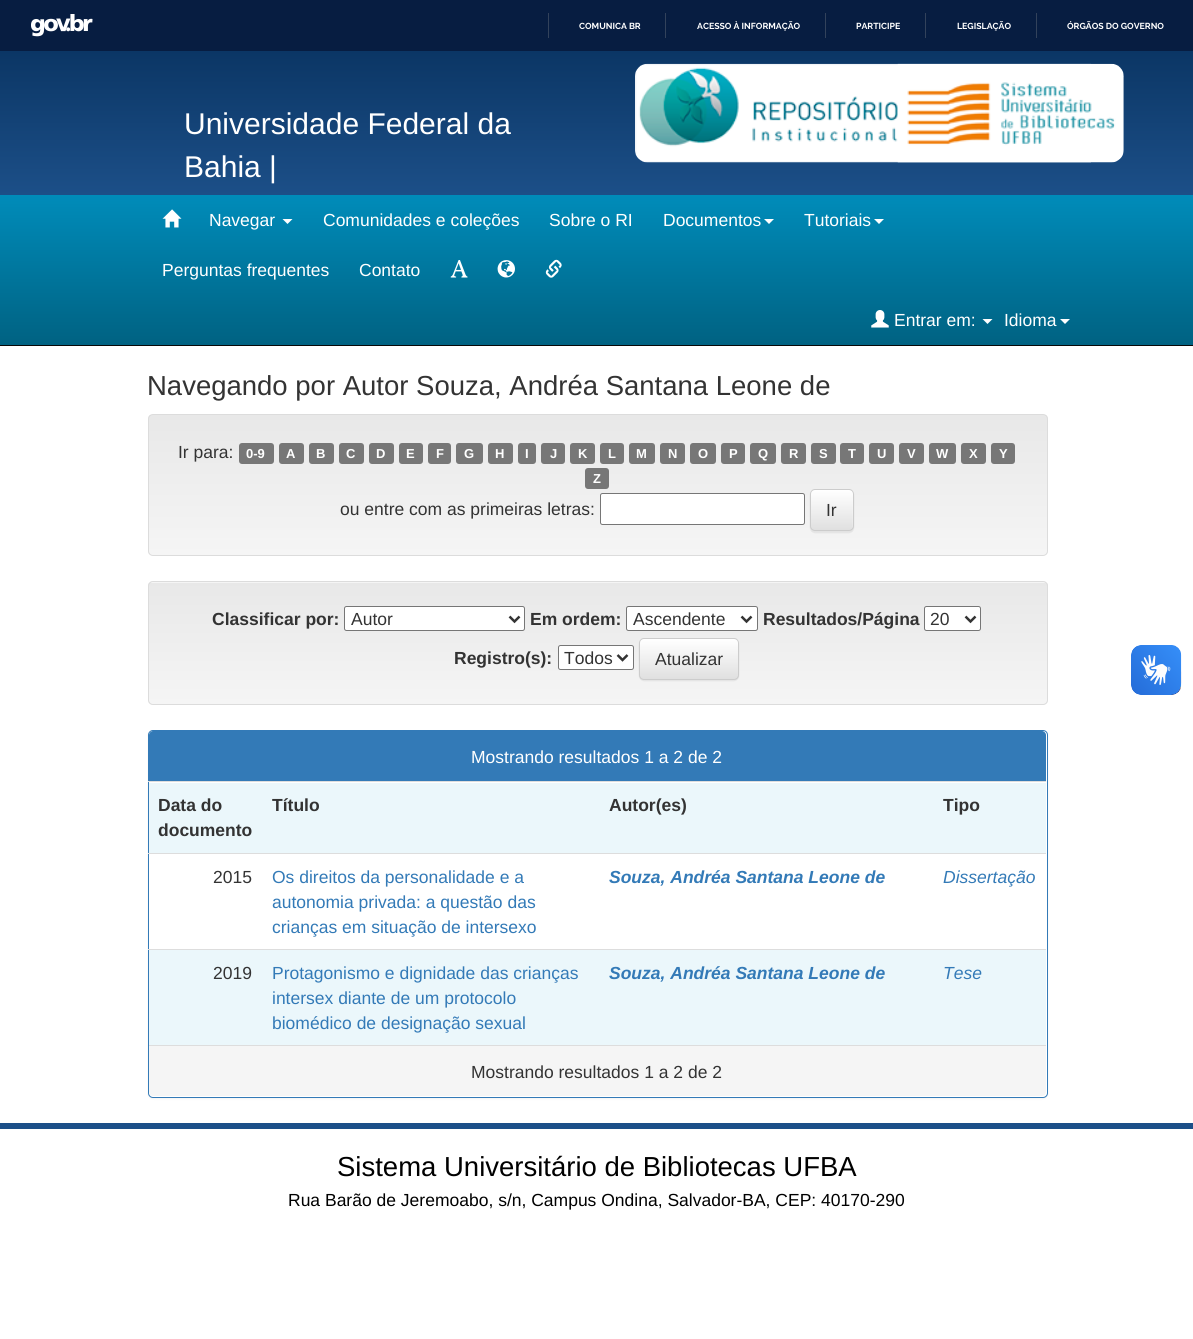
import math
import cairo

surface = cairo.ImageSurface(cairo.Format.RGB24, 1193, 1339)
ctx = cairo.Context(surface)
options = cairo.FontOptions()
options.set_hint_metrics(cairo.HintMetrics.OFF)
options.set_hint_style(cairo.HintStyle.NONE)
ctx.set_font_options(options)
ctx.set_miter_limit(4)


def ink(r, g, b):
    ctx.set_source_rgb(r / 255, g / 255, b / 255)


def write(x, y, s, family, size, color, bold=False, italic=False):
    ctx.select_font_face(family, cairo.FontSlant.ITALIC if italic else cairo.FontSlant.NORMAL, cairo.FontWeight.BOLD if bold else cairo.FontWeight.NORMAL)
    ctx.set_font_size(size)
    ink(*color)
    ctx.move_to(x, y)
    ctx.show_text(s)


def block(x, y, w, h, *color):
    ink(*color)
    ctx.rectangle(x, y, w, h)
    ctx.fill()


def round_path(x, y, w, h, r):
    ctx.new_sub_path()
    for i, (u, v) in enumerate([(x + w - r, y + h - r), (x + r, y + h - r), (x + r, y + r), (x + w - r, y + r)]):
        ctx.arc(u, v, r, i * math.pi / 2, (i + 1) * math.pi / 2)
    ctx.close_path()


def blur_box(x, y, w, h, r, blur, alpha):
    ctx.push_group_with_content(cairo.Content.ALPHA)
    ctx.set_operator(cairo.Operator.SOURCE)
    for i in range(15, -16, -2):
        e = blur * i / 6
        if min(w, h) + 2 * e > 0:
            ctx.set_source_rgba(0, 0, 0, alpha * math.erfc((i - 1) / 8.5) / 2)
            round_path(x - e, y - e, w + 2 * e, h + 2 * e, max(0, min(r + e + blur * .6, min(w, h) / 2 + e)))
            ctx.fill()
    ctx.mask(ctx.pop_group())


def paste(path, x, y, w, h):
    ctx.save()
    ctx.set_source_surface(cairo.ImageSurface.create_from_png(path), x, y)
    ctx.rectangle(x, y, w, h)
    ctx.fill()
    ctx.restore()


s1 = dict(family="Raleway", size=8.75, color=(255, 255, 255), bold=True)
s2 = dict(family="Liberation Sans", size=30, color=(255, 255, 255))
s3 = dict(family="Liberation Sans", size=17.5, color=(255, 255, 255))
s4 = dict(family="Liberation Sans", size=27.5, color=(51, 51, 51))
s5 = dict(family="Liberation Sans", size=17.5, color=(51, 51, 51))
s6 = dict(family="Liberation Sans", size=13, color=(255, 255, 255), bold=True)
s7 = dict(family="Liberation Sans", size=17.5, color=(51, 51, 51), bold=True)
s8 = dict(family="Liberation Sans", size=17.5, color=(51, 122, 183))
s9 = dict(family="Liberation Sans", size=17.5, color=(51, 122, 183), bold=True, italic=True)
s10 = dict(family="Liberation Sans", size=17.5, color=(51, 122, 183), italic=True)
s11 = dict(family="Liberation Sans", size=27.5, color=(0, 0, 0))
s12 = dict(family="Liberation Sans", size=17.5, color=(0, 0, 0))

ink(255, 255, 255)
ctx.paint()
block(0, 0, 1193, 51, 7, 29, 65)
paste("pic1.png", 31, 14, 62, 23)
block(548, 13, 1, 25, 50, 66, 91)
write(579, 29, "COMUNICA BR", **s1)
block(665, 13, 1, 25, 50, 66, 91)
write(697, 29, "ACESSO À INFORMAÇÃO", **s1)
block(825, 13, 1, 25, 50, 66, 91)
write(856, 29, "PARTICIPE", **s1)
block(925, 13, 1, 25, 50, 66, 91)
write(957, 29, "LEGISLAÇÃO", **s1)
block(1036, 13, 1, 25, 50, 66, 91)
write(1067, 29, "ÓRGÃOS DO GOVERNO", **s1)
gradient = cairo.LinearGradient(597, 51, 597, 195)
gradient.add_color_stop_rgba(0, 0.043, 0.212, 0.396, 1)
gradient.add_color_stop_rgba(1, 0.11, 0.31, 0.533, 1)
ctx.set_source(gradient)
ctx.rectangle(0, 51, 1193, 144)
ctx.fill()
write(184, 134, "Universidade Federal da", **s2)
write(184, 177, "Bahia |", **s2)
paste("pic2.png", 635, 63, 456, 100)
paste("pic3.png", 897, 63, 227, 100)
gradient = cairo.LinearGradient(597, 195, 597, 345)
gradient.add_color_stop_rgba(0, 0, 0.549, 0.729, 1)
gradient.add_color_stop_rgba(1, 0, 0.384, 0.51, 1)
ctx.set_source(gradient)
ctx.rectangle(0, 195, 1193, 150)
ctx.fill()
block(0, 345, 1193, 1, 8, 8, 8)
paste("pic4.png", 162, 209, 20, 19)
write(209, 226, "Navegar", **s3)
ctx.new_path()
ctx.move_to(282.5, 219)
ctx.line_to(292.5, 219)
ctx.line_to(287.5, 224)
ctx.close_path()
ctx.fill()
write(323, 226, "Comunidades e coleções", **s3)
write(549, 226, "Sobre o RI", **s3)
write(663, 226, "Documentos", **s3)
ctx.new_path()
ctx.move_to(764, 219)
ctx.line_to(774, 219)
ctx.line_to(769, 224)
ctx.close_path()
ctx.fill()
write(804, 226, "Tutoriais", **s3)
ctx.new_path()
ctx.move_to(874, 219)
ctx.line_to(884, 219)
ctx.line_to(879, 224)
ctx.close_path()
ctx.fill()
write(162, 276, "Perguntas frequentes", **s3)
write(359, 276, "Contato", **s3)
paste("pic5.png", 450, 260, 18, 18)
paste("pic6.png", 497, 260, 18, 18)
paste("pic7.png", 545, 259, 17, 19)
paste("pic8.png", 871, 310, 18, 18)
write(894, 326, "Entrar em:", **s3)
ctx.new_path()
ctx.move_to(982.5, 319)
ctx.line_to(992.5, 319)
ctx.line_to(987.5, 324)
ctx.close_path()
ctx.fill()
write(1004, 326, "Idioma", **s3)
ctx.new_path()
ctx.move_to(1060, 319)
ctx.line_to(1070, 319)
ctx.line_to(1065, 324)
ctx.close_path()
ctx.fill()
write(147, 395, "Navegando por Autor Souza, Andréa Santana Leone de", **s4)
ctx.save()
round_path(148, 414, 900, 142, 5)
ctx.clip()
gradient = cairo.LinearGradient(598, 415, 598, 555)
gradient.add_color_stop_rgba(0, 0.91, 0.91, 0.91, 1)
gradient.add_color_stop_rgba(1, 0.961, 0.961, 0.961, 1)
ctx.set_source(gradient)
ctx.rectangle(148, 415, 900, 140)
ctx.fill()
ctx.restore()
round_path(148.5, 414.5, 899, 141, 4.5)
ink(220, 220, 220)
ctx.set_line_width(1)
ctx.stroke()
write(178, 458, "Ir para:", **s5)
ink(119, 119, 119)
round_path(239, 443, 35, 21, 3)
ctx.fill()
write(246, 458, "0-9", **s6)
ink(119, 119, 119)
round_path(279, 443, 25, 21, 3)
ctx.fill()
write(286, 458, "A", **s6)
ink(119, 119, 119)
round_path(309, 443, 25, 21, 3)
ctx.fill()
write(316, 458, "B", **s6)
ink(119, 119, 119)
round_path(339, 443, 25, 21, 3)
ctx.fill()
write(346, 458, "C", **s6)
ink(119, 119, 119)
round_path(369, 443, 25, 21, 3)
ctx.fill()
write(376, 458, "D", **s6)
ink(119, 119, 119)
round_path(399, 443, 24, 21, 3)
ctx.fill()
write(406, 458, "E", **s6)
ink(119, 119, 119)
round_path(428, 443, 23, 21, 3)
ctx.fill()
write(436, 458, "F", **s6)
ink(119, 119, 119)
round_path(456, 443, 27, 21, 3)
ctx.fill()
write(464, 458, "G", **s6)
ink(119, 119, 119)
round_path(488, 443, 25, 21, 3)
ctx.fill()
write(495, 458, "H", **s6)
ink(119, 119, 119)
round_path(518, 443, 18, 21, 3)
ctx.fill()
write(525, 458, "I", **s6)
ink(119, 119, 119)
round_path(541, 443, 24, 21, 3)
ctx.fill()
write(550, 458, "J", **s6)
ink(119, 119, 119)
round_path(570, 443, 25, 21, 3)
ctx.fill()
write(578, 458, "K", **s6)
ink(119, 119, 119)
round_path(600, 443, 24, 21, 3)
ctx.fill()
write(608, 458, "L", **s6)
ink(119, 119, 119)
round_path(629, 443, 26, 21, 3)
ctx.fill()
write(636, 458, "M", **s6)
ink(119, 119, 119)
round_path(660, 443, 25, 21, 3)
ctx.fill()
write(668, 458, "N", **s6)
ink(119, 119, 119)
round_path(690, 443, 26, 21, 3)
ctx.fill()
write(698, 458, "O", **s6)
ink(119, 119, 119)
round_path(721, 443, 24, 21, 3)
ctx.fill()
write(729, 458, "P", **s6)
ink(119, 119, 119)
round_path(750, 443, 26, 21, 3)
ctx.fill()
write(758, 458, "Q", **s6)
ink(119, 119, 119)
round_path(781, 443, 25, 21, 3)
ctx.fill()
write(789, 458, "R", **s6)
ink(119, 119, 119)
round_path(811, 443, 25, 21, 3)
ctx.fill()
write(819, 458, "S", **s6)
ink(119, 119, 119)
round_path(840, 443, 24, 21, 3)
ctx.fill()
write(848, 458, "T", **s6)
ink(119, 119, 119)
round_path(869, 443, 25, 21, 3)
ctx.fill()
write(877, 458, "U", **s6)
ink(119, 119, 119)
round_path(899, 443, 25, 21, 3)
ctx.fill()
write(907, 458, "V", **s6)
ink(119, 119, 119)
round_path(929, 443, 27, 21, 3)
ctx.fill()
write(936, 458, "W", **s6)
ink(119, 119, 119)
round_path(961, 443, 25, 21, 3)
ctx.fill()
write(969, 458, "X", **s6)
ink(119, 119, 119)
round_path(991, 443, 24, 21, 3)
ctx.fill()
write(999, 458, "Y", **s6)
ink(119, 119, 119)
round_path(585, 468, 24, 21, 3)
ctx.fill()
write(593, 483, "Z", **s6)
write(340, 515, "ou entre com as primeiras letras:", **s5)
ink(255, 255, 255)
round_path(600.5, 493.5, 204, 31, 2)
ctx.fill_preserve()
ink(118, 118, 118)
ctx.stroke()
ink(0, 0, 0)
blur_box(810, 490, 44, 43, 5, 0.5, 0.07)
ctx.save()
round_path(810, 489, 44, 42, 5)
ctx.clip()
gradient = cairo.LinearGradient(832, 490, 832, 530)
gradient.add_color_stop_rgba(0, 1, 1, 1, 1)
gradient.add_color_stop_rgba(1, 0.878, 0.878, 0.878, 1)
ctx.set_source(gradient)
ctx.rectangle(810, 490, 44, 40)
ctx.fill()
ctx.restore()
ctx.set_source_rgba(1, 1, 1, 0.15)
ctx.new_path()
ctx.move_to(815, 491)
ctx.line_to(850, 491)
ctx.curve_to(854, 492, 852, 504, 852, 506)
ctx.line_to(852, 529)
ctx.curve_to(854, 527, 853, 523, 853, 521)
ctx.line_to(853, 510)
ctx.curve_to(853, 486, 856, 490, 832, 490)
ctx.line_to(821, 490)
ctx.curve_to(816, 490, 811, 489, 811, 495)
ctx.curve_to(811, 493, 813, 491, 815, 491)
ctx.close_path()
ctx.fill()
round_path(810.5, 489.5, 43, 41, 4.5)
ink(204, 204, 204)
ctx.stroke()
write(826, 516, "Ir", **s5)
ink(245, 245, 245)
round_path(148, 581, 900, 124, 5)
ctx.fill()
ctx.save()
round_path(148, 581, 900, 124, 5)
ctx.clip()
gradient = cairo.LinearGradient(598, 582, 598, 704)
gradient.add_color_stop_rgba(0, 0.91, 0.91, 0.91, 1)
gradient.add_color_stop_rgba(1, 0.961, 0.961, 0.961, 1)
ctx.set_source(gradient)
ctx.rectangle(148, 583, 900, 121)
ctx.fill()
ctx.restore()
round_path(148.5, 581.5, 899, 123, 4.5)
ink(220, 220, 220)
ctx.stroke()
write(212, 625, "Classificar por:", **s7)
ink(255, 255, 255)
round_path(344.5, 606.5, 180, 24, 2)
ctx.fill_preserve()
ink(118, 118, 118)
ctx.stroke()
ctx.new_path()
ctx.move_to(509.5, 616.5)
ctx.line_to(514.5, 621.5)
ctx.line_to(519.5, 616.5)
ink(51, 51, 51)
ctx.set_line_width(2.5)
ctx.stroke()
write(351, 625, "Autor", **s5)
write(530, 625, "Em ordem:", **s7)
ink(255, 255, 255)
round_path(626.5, 606.5, 131, 24, 2)
ctx.fill_preserve()
ink(118, 118, 118)
ctx.set_line_width(1)
ctx.stroke()
ctx.new_path()
ctx.move_to(741.5, 616.5)
ctx.line_to(746.5, 621.5)
ctx.line_to(751.5, 616.5)
ink(51, 51, 51)
ctx.set_line_width(2.5)
ctx.stroke()
write(633, 625, "Ascendente", **s5)
write(763, 625, "Resultados/Página", **s7)
ink(255, 255, 255)
round_path(924.5, 606.5, 56, 24, 2)
ctx.fill_preserve()
ink(118, 118, 118)
ctx.set_line_width(1)
ctx.stroke()
ctx.new_path()
ctx.move_to(965.5, 616.5)
ctx.line_to(970.5, 621.5)
ctx.line_to(975.5, 616.5)
ink(51, 51, 51)
ctx.set_line_width(2.5)
ctx.stroke()
write(930, 625, "20", **s5)
write(454, 664, "Registro(s):", **s7)
ink(255, 255, 255)
round_path(558.5, 645.5, 75, 24, 2)
ctx.fill_preserve()
ink(118, 118, 118)
ctx.set_line_width(1)
ctx.stroke()
ctx.new_path()
ctx.move_to(617.5, 655)
ctx.line_to(622.5, 660)
ctx.line_to(627.5, 655)
ink(51, 51, 51)
ctx.set_line_width(2.5)
ctx.stroke()
write(564, 664, "Todos", **s5)
ink(0, 0, 0)
blur_box(639, 639, 100, 42, 5, 0.5, 0.07)
ctx.save()
round_path(639, 638, 100, 42, 5)
ctx.clip()
gradient = cairo.LinearGradient(689, 639, 689, 679)
gradient.add_color_stop_rgba(0, 1, 1, 1, 1)
gradient.add_color_stop_rgba(1, 0.878, 0.878, 0.878, 1)
ctx.set_source(gradient)
ctx.rectangle(639, 639, 100, 40)
ctx.fill()
ctx.restore()
round_path(639.5, 638.5, 99, 41, 4.5)
ink(204, 204, 204)
ctx.set_line_width(1)
ctx.stroke()
write(655, 665, "Atualizar", **s5)
ink(0, 0, 0)
blur_box(148, 731, 900, 368, 5, 1, 0.05)
ink(255, 255, 255)
round_path(148.5, 730.5, 899, 367, 4.5)
ctx.fill_preserve()
ink(51, 122, 183)
ctx.stroke()
ctx.new_path()
ctx.move_to(153, 731)
ctx.line_to(1042, 731)
ctx.curve_to(1044, 731, 1046, 733, 1046, 735)
ctx.line_to(1046, 781)
ctx.line_to(149, 781)
ctx.line_to(149, 735)
ctx.curve_to(149, 733, 151, 731, 153, 731)
ctx.close_path()
ctx.fill()
write(471, 763, "Mostrando resultados 1 a 2 de 2", **s3)
block(149, 783, 897, 70, 235, 247, 251)
write(158, 811, "Data do", **s7)
write(158, 836, "documento", **s7)
write(272, 811, "Título", **s7)
write(609, 811, "Autor(es)", **s7)
block(148, 781, 898, 1, 221, 221, 221)
write(943, 811, "Tipo", **s7)
write(213, 883, "2015", **s5)
write(272, 883, "Os direitos da personalidade e a", **s8)
write(272, 908, "autonomia privada: a questão das", **s8)
write(272, 933, "crianças em situação de intersexo", **s8)
write(609, 883, "Souza, Andréa Santana Leone de", **s9)
block(148, 853, 898, 1, 221, 221, 221)
write(943, 883, "Dissertação", **s10)
block(149, 950, 897, 95, 235, 247, 251)
write(213, 979, "2019", **s5)
write(272, 979, "Protagonismo e dignidade das crianças", **s8)
write(272, 1004, "intersex diante de um protocolo", **s8)
write(272, 1029, "biomédico de designação sexual", **s8)
write(609, 979, "Souza, Andréa Santana Leone de", **s9)
block(148, 949, 898, 1, 221, 221, 221)
write(943, 979, "Tese", **s10)
ink(245, 245, 245)
ctx.new_path()
ctx.move_to(149, 1045)
ctx.line_to(1046, 1045)
ctx.line_to(1046, 1092)
ctx.curve_to(1046, 1094, 1044, 1096, 1042, 1096)
ctx.line_to(153, 1096)
ctx.curve_to(151, 1096, 149, 1094, 149, 1092)
ctx.close_path()
ctx.fill()
block(149, 1045, 897, 1, 221, 221, 221)
write(471, 1078, "Mostrando resultados 1 a 2 de 2", **s5)
paste("pic9.png", 1131, 645, 51, 50)
paste("pic10.png", 1131, 645, 50, 50)
block(0, 1123, 1193, 6, 28, 79, 136)
write(337, 1176, "Sistema Universitário de Bibliotecas UFBA", **s11)
write(288, 1206, "Rua Barão de Jeremoabo, s/n, Campus Ondina, Salvador-BA, CEP: 40170-290", **s12)
surface.write_to_png("screenshot.png")
